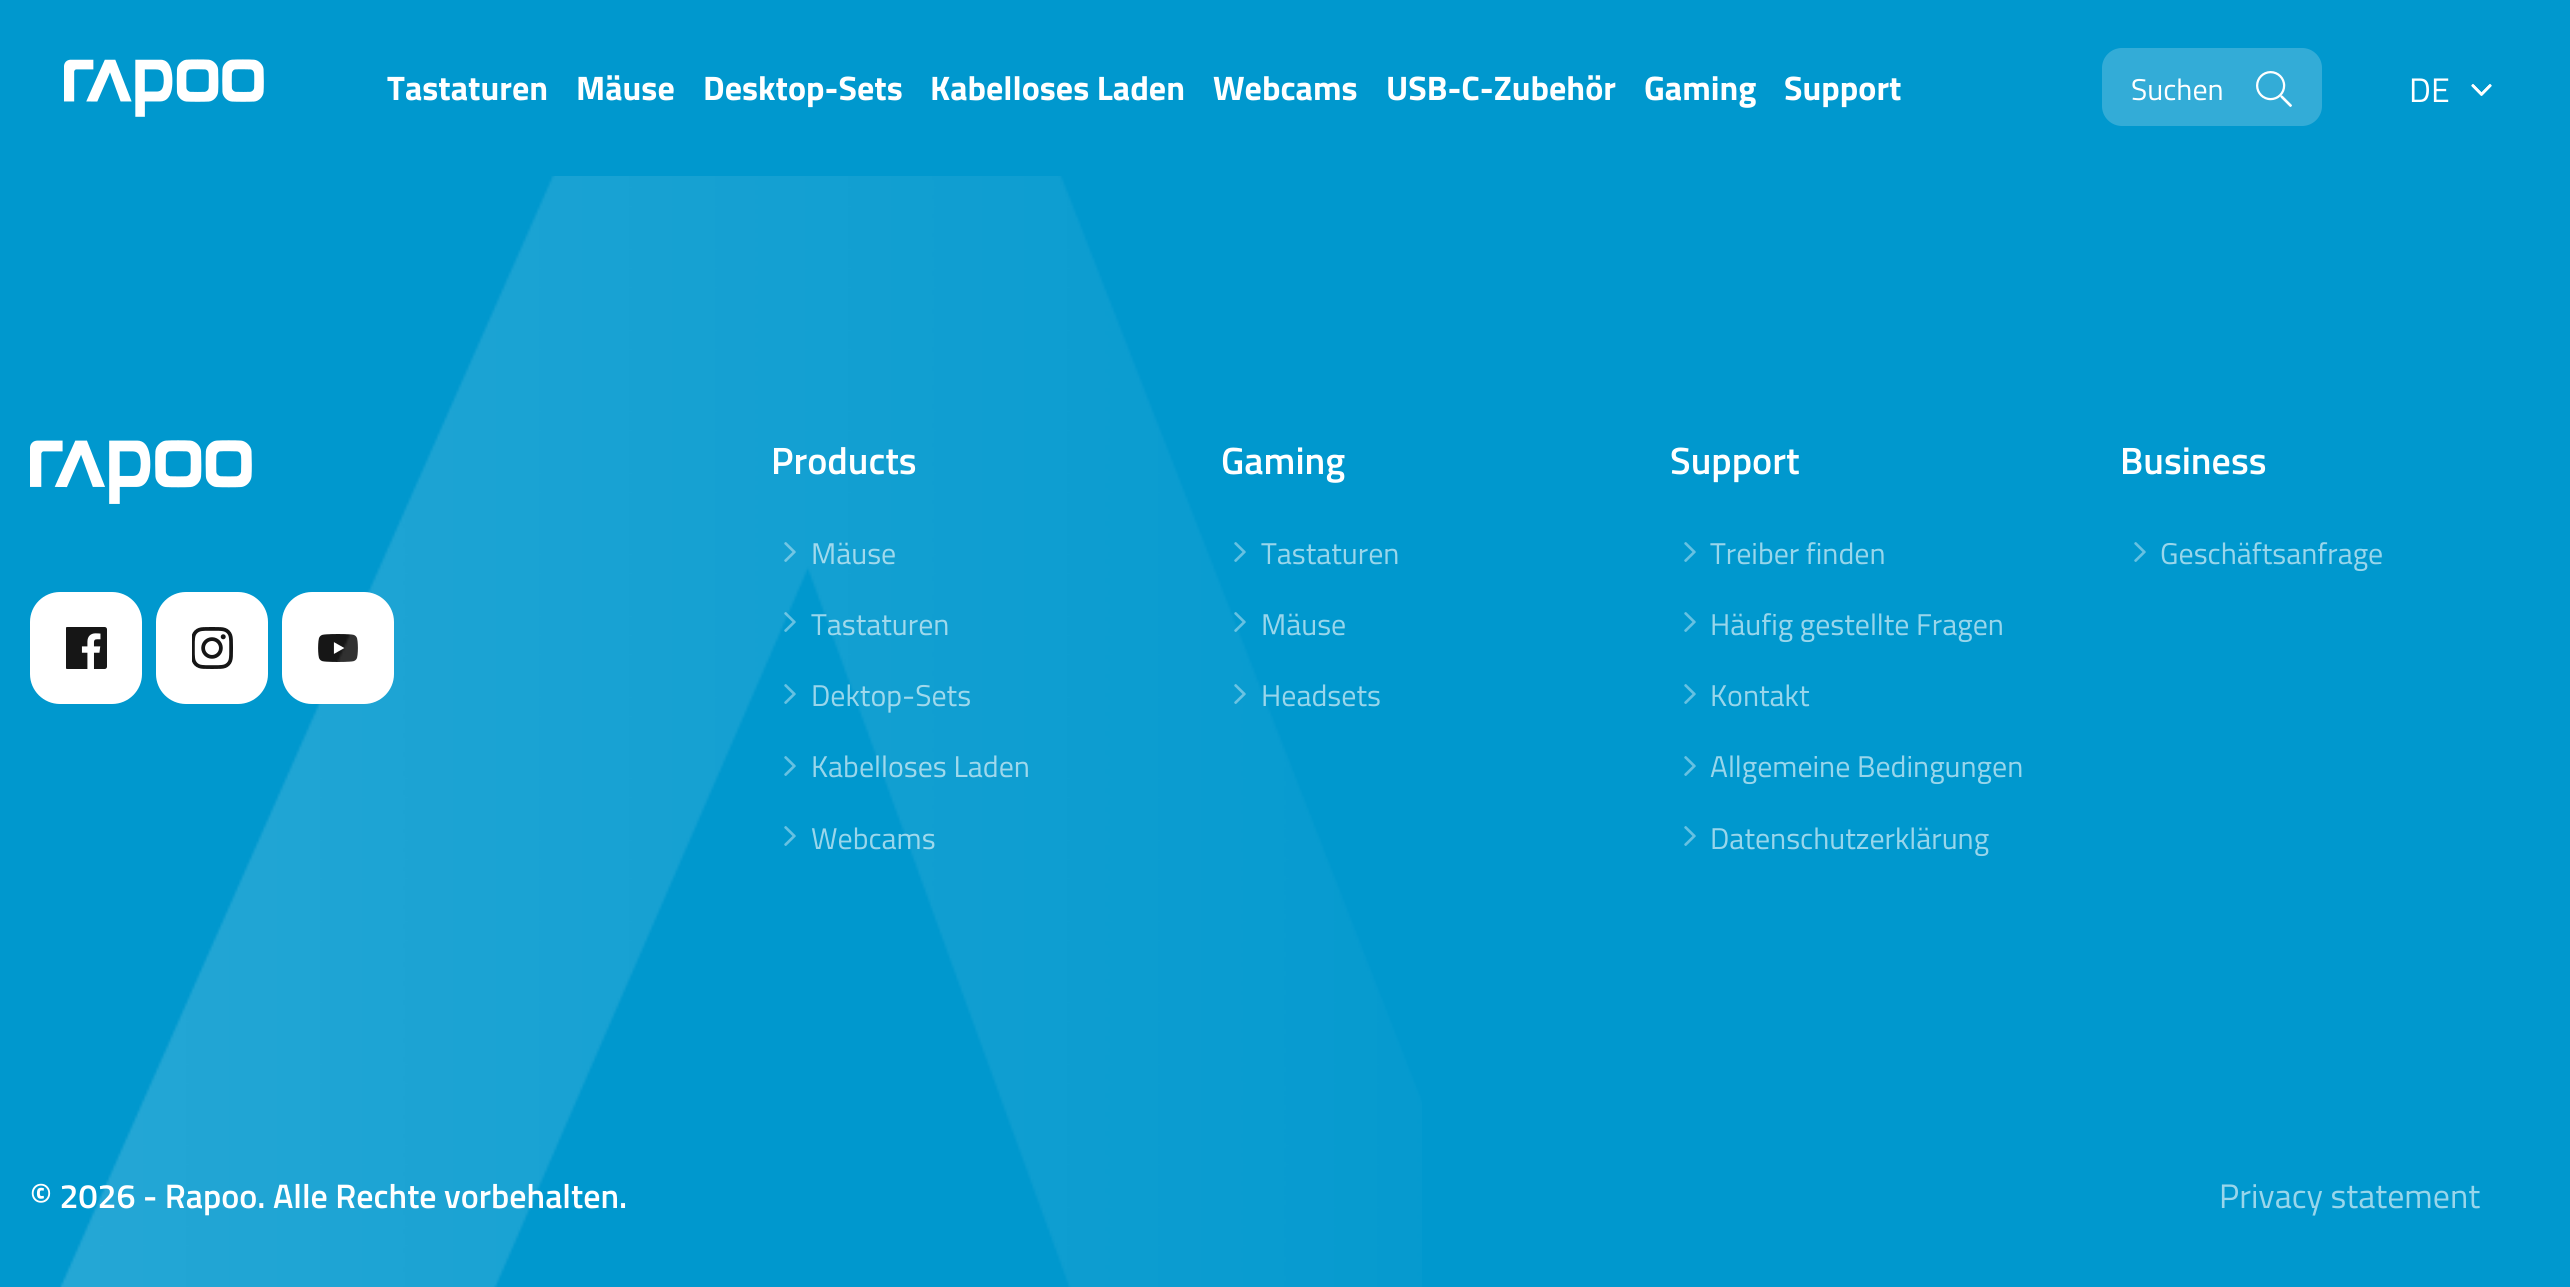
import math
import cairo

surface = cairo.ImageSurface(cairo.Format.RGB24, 2570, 1287)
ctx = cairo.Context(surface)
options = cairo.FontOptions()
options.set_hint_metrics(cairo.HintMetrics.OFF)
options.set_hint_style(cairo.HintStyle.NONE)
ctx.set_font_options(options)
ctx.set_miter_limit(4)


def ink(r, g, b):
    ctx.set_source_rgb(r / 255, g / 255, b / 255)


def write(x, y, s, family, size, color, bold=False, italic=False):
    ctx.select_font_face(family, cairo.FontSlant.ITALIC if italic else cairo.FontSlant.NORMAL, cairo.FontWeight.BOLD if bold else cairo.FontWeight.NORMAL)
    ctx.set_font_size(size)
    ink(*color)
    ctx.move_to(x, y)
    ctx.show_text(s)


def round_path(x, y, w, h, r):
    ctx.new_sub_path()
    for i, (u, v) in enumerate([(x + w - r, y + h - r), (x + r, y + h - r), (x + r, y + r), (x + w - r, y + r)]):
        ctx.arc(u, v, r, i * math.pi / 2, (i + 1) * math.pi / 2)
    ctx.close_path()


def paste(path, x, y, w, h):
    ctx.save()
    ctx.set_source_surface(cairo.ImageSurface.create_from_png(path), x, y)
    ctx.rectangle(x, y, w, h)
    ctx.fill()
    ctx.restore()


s1 = dict(family="Titillium Web", size=34, color=(255, 255, 255), bold=True)
s2 = dict(family="Titillium Web", size=30, color=(255, 255, 255))
s3 = dict(family="Titillium Web", size=34, color=(255, 255, 255))
s4 = dict(family="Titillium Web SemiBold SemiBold", size=38, color=(255, 255, 255))
s5 = dict(family="Titillium Web", size=30, color=(153, 214, 235))
s6 = dict(family="Titillium Web SemiBold SemiBold", size=34, color=(255, 255, 255))
s7 = dict(family="Titillium Web", size=34, color=(153, 214, 235))

ink(0, 152, 206)
ctx.paint()
paste("pic1.png", 64, 59, 200, 58)
write(387, 100, "Tastaturen", **s1)
write(576, 100, "Mäuse", **s1)
write(703, 100, "Desktop-Sets", **s1)
write(930, 100, "Kabelloses Laden", **s1)
write(1213, 100, "Webcams", **s1)
write(1386, 100, "USB-C-Zubehör", **s1)
write(1644, 100, "Gaming", **s1)
write(1784, 100, "Support", **s1)
ink(51, 172, 215)
round_path(2102, 48, 220, 78, 20)
ctx.fill()
write(2131, 100, "Suchen", **s2)
paste("pic2.png", 2256, 71, 36, 36)
paste("pic4.png", 2471, 84, 21, 12)
paste("pic3.png", 2471, 84, 21, 12)
write(2409, 102, "DE", **s3)
paste("pic6.png", 30, 440, 222, 64)
round_path(30, 592, 112, 112, 30)
ctx.fill()
paste("pic7.png", 66, 627, 41, 42)
round_path(156, 592, 112, 112, 30)
ctx.fill()
paste("pic8.png", 192, 627, 41, 42)
round_path(282, 592, 112, 112, 30)
ctx.fill()
paste("pic9.png", 318, 634, 40, 28)
write(771, 474, "Products", **s4)
paste("pic10.png", 784, 542, 12, 20)
write(811, 564, "Mäuse", **s5)
paste("pic10.png", 784, 612, 12, 20)
write(811, 635, "Tastaturen", **s5)
paste("pic10.png", 784, 684, 12, 20)
write(811, 706, "Dektop-Sets", **s5)
paste("pic10.png", 784, 756, 12, 20)
write(811, 777, "Kabelloses Laden", **s5)
paste("pic10.png", 784, 826, 12, 20)
write(811, 849, "Webcams", **s5)
write(1221, 474, "Gaming", **s4)
paste("pic10.png", 1234, 542, 12, 20)
write(1261, 564, "Tastaturen", **s5)
paste("pic10.png", 1234, 612, 12, 20)
write(1261, 635, "Mäuse", **s5)
paste("pic10.png", 1234, 684, 12, 20)
write(1261, 706, "Headsets", **s5)
write(30, 1208, "© 2026 - Rapoo. Alle Rechte vorbehalten.", **s6)
paste("pic5.png", 60, 176, 1362, 1111)
write(1670, 474, "Support", **s4)
paste("pic10.png", 1684, 542, 12, 20)
write(1710, 564, "Treiber finden", **s5)
paste("pic10.png", 1684, 612, 12, 20)
write(1710, 635, "Häufig gestellte Fragen", **s5)
paste("pic10.png", 1684, 684, 12, 20)
write(1710, 706, "Kontakt", **s5)
paste("pic10.png", 1684, 756, 12, 20)
write(1710, 777, "Allgemeine Bedingungen", **s5)
paste("pic10.png", 1684, 826, 12, 20)
write(1710, 849, "Datenschutzerklärung", **s5)
write(2120, 474, "Business", **s4)
paste("pic10.png", 2134, 542, 12, 20)
write(2160, 564, "Geschäftsanfrage", **s5)
write(2219, 1208, "Privacy statement", **s7)
surface.write_to_png("screenshot.png")
